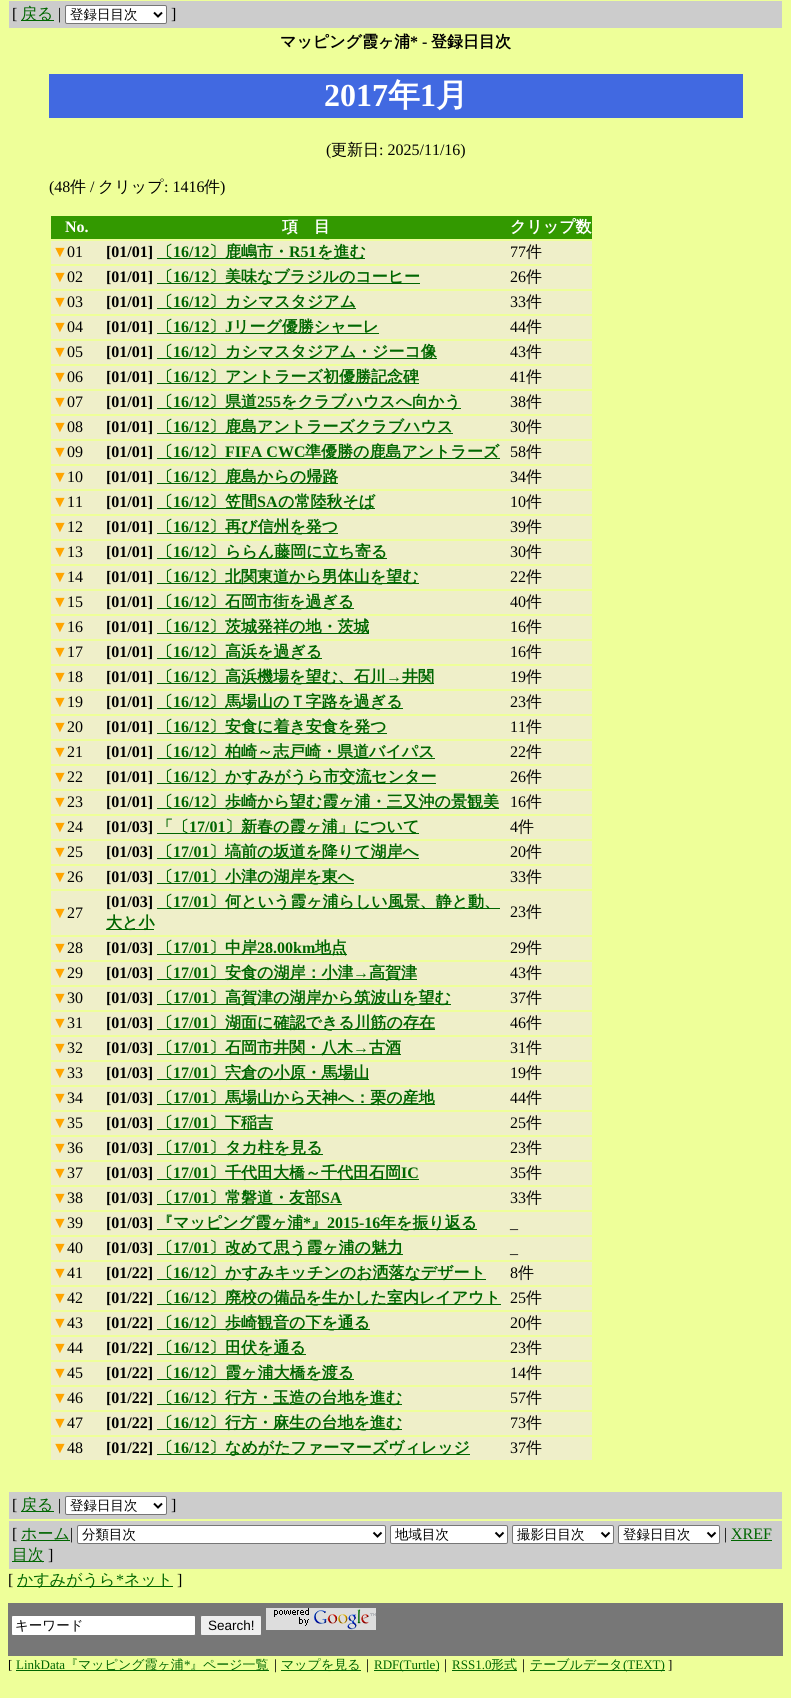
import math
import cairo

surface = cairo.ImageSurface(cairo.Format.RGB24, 791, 1698)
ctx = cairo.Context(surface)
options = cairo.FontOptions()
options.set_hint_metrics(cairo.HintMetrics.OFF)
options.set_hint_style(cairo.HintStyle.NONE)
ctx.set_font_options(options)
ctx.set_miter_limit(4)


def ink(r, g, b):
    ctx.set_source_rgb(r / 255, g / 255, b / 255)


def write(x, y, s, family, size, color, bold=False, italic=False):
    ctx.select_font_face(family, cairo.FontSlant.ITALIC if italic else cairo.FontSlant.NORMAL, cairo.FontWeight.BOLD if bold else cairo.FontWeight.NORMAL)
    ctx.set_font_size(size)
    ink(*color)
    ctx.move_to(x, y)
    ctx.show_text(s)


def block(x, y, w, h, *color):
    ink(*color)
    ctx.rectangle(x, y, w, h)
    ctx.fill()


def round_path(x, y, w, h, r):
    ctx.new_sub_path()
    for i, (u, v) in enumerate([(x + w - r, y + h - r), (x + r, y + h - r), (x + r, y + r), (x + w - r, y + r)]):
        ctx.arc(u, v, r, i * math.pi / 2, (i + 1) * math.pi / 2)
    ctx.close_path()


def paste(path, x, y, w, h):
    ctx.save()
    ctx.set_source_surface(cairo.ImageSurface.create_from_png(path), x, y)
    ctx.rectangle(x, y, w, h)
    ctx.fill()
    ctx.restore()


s1 = dict(family="Liberation Serif", size=16, color=(0, 0, 0))
s2 = dict(family="WenQuanYi Zen Hei Medium", size=16, color=(0, 102, 0))
s3 = dict(family="WenQuanYi Zen Hei Medium", size=13.5, color=(0, 0, 0))
s4 = dict(family="WenQuanYi Zen Hei", size=16, color=(0, 0, 0), bold=True)
s5 = dict(family="Liberation Serif", size=16, color=(0, 0, 0), bold=True)
s6 = dict(family="Liberation Serif", size=32, color=(255, 255, 255), bold=True)
s7 = dict(family="WenQuanYi Zen Hei", size=32, color=(255, 255, 255), bold=True)
s8 = dict(family="WenQuanYi Zen Hei Medium", size=16, color=(0, 0, 0))
s9 = dict(family="Liberation Serif", size=16, color=(255, 255, 255), bold=True)
s10 = dict(family="WenQuanYi Zen Hei", size=16, color=(255, 255, 255), bold=True)
s11 = dict(family="Liberation Serif", size=16, color=(255, 165, 0))
s12 = dict(family="WenQuanYi Zen Hei", size=16, color=(0, 102, 0), bold=True)
s13 = dict(family="Liberation Serif", size=16, color=(0, 102, 0), bold=True)
s14 = dict(family="Liberation Serif", size=16, color=(0, 102, 0))
s15 = dict(family="Liberation Sans", size=13.5, color=(0, 0, 0))
s16 = dict(family="Liberation Serif", size=13, color=(0, 0, 0))
s17 = dict(family="Liberation Serif", size=13, color=(0, 102, 0))
s18 = dict(family="WenQuanYi Zen Hei Medium", size=13, color=(0, 102, 0))
s19 = dict(family="WenQuanYi Zen Hei Medium", size=13, color=(0, 0, 0))

ink(238, 255, 153)
ctx.paint()
block(9, 1, 773, 27, 204, 204, 204)
write(12, 19, "[", **s1)
block(21, 20, 33, 1, 0, 102, 0)
write(21, 19, "戻る", **s2)
write(58, 19, "|", **s1)
ink(255, 255, 255)
round_path(65.5, 5.5, 101, 18, 1.5)
ctx.fill_preserve()
ink(118, 118, 118)
ctx.set_line_width(1)
ctx.stroke()
ctx.new_path()
ctx.move_to(154, 12.5)
ctx.line_to(158, 16.5)
ctx.line_to(162, 12.5)
ink(0, 0, 0)
ctx.set_line_width(2)
ctx.stroke()
write(70, 19, "登録日目次", **s3)
write(171, 19, "]", **s1)
write(280, 47, "マッピング霞ヶ浦", **s4)
write(410, 47, "* -", **s5)
write(431, 47, "登録日目次", **s4)
block(49, 74, 694, 44, 65, 105, 225)
write(324, 106, "2017", **s6)
write(388, 106, "年", **s7)
write(420, 106, "1", **s6)
write(436, 106, "月", **s7)
write(326, 155, "(", **s1)
write(331, 155, "更新日", **s8)
write(379, 155, ": 2025/11/16)", **s1)
write(49, 192, "(48", **s1)
write(70, 192, "件", **s8)
write(90, 192, "/", **s1)
write(98, 192, "クリップ", **s8)
write(164, 192, ": 1416", **s1)
write(204, 192, "件", **s8)
write(220, 192, ")", **s1)
block(51, 216, 541, 23, 51, 153, 0)
write(65, 232, "No.", **s9)
write(282, 232, "項　目", **s10)
write(510, 232, "クリップ数", **s10)
block(51, 241, 541, 23, 239, 239, 201)
write(52, 257, "▼", **s11)
write(67, 257, "01", **s1)
write(106, 257, "[01/01]", **s5)
block(157, 258, 208, 1, 0, 102, 0)
write(157, 257, "〔", **s12)
write(173, 257, "16/12", **s13)
write(209, 257, "〕鹿嶋市・", **s12)
write(289, 257, "R51", **s13)
write(317, 257, "を進む", **s12)
write(510, 257, "77", **s1)
write(526, 257, "件", **s8)
block(51, 266, 541, 23, 239, 239, 201)
write(52, 282, "▼", **s11)
write(67, 282, "02", **s1)
write(106, 282, "[01/01]", **s5)
block(157, 283, 263, 1, 0, 102, 0)
write(157, 282, "〔", **s12)
write(173, 282, "16/12", **s13)
write(209, 282, "〕美味なブラジルのコーヒー", **s12)
write(510, 282, "26", **s1)
write(526, 282, "件", **s8)
block(51, 291, 541, 23, 239, 239, 201)
write(52, 307, "▼", **s11)
write(67, 307, "03", **s1)
write(106, 307, "[01/01]", **s5)
block(157, 308, 199, 1, 0, 102, 0)
write(157, 307, "〔", **s12)
write(173, 307, "16/12", **s13)
write(209, 307, "〕カシマスタジアム", **s12)
write(510, 307, "33", **s1)
write(526, 307, "件", **s8)
block(51, 316, 541, 23, 239, 239, 201)
write(52, 332, "▼", **s11)
write(67, 332, "04", **s1)
write(106, 332, "[01/01]", **s5)
block(157, 333, 222, 1, 0, 102, 0)
write(157, 332, "〔", **s12)
write(173, 332, "16/12", **s13)
write(209, 332, "〕", **s12)
write(225, 332, "J", **s13)
write(233, 332, "リーグ優勝シャーレ", **s12)
write(510, 332, "44", **s1)
write(526, 332, "件", **s8)
block(51, 341, 541, 23, 239, 239, 201)
write(52, 357, "▼", **s11)
write(67, 357, "05", **s1)
write(106, 357, "[01/01]", **s5)
block(157, 358, 280, 1, 0, 102, 0)
write(157, 357, "〔", **s12)
write(173, 357, "16/12", **s13)
write(209, 357, "〕カシマスタジアム・ジーコ像", **s12)
write(510, 357, "43", **s1)
write(526, 357, "件", **s8)
block(51, 366, 541, 23, 239, 239, 201)
write(52, 382, "▼", **s11)
write(67, 382, "06", **s1)
write(106, 382, "[01/01]", **s5)
block(157, 383, 262, 1, 0, 102, 0)
write(157, 382, "〔", **s12)
write(173, 382, "16/12", **s13)
write(209, 382, "〕アントラーズ初優勝記念碑", **s12)
write(510, 382, "41", **s1)
write(526, 382, "件", **s8)
block(51, 391, 541, 23, 239, 239, 201)
write(52, 407, "▼", **s11)
write(67, 407, "07", **s1)
write(106, 407, "[01/01]", **s5)
block(157, 408, 304, 1, 0, 102, 0)
write(157, 407, "〔", **s12)
write(173, 407, "16/12", **s13)
write(209, 407, "〕県道", **s12)
write(257, 407, "255", **s13)
write(281, 407, "をクラブハウスへ向かう", **s12)
write(510, 407, "38", **s1)
write(526, 407, "件", **s8)
block(51, 416, 541, 23, 239, 239, 201)
write(52, 432, "▼", **s11)
write(67, 432, "08", **s1)
write(106, 432, "[01/01]", **s5)
block(157, 433, 296, 1, 0, 102, 0)
write(157, 432, "〔", **s12)
write(173, 432, "16/12", **s13)
write(209, 432, "〕鹿島アントラーズクラブハウス", **s12)
write(510, 432, "30", **s1)
write(526, 432, "件", **s8)
block(51, 441, 541, 23, 239, 239, 201)
write(52, 457, "▼", **s11)
write(67, 457, "09", **s1)
write(106, 457, "[01/01]", **s5)
block(157, 458, 343, 1, 0, 102, 0)
write(157, 457, "〔", **s12)
write(173, 457, "16/12", **s13)
write(209, 457, "〕", **s12)
write(225, 457, "FIFA CWC", **s13)
write(305, 457, "準優勝の鹿島アントラーズ", **s12)
write(510, 457, "58", **s1)
write(526, 457, "件", **s8)
block(51, 466, 541, 23, 239, 239, 201)
write(52, 482, "▼", **s11)
write(67, 482, "10", **s1)
write(106, 482, "[01/01]", **s5)
block(157, 483, 181, 1, 0, 102, 0)
write(157, 482, "〔", **s12)
write(173, 482, "16/12", **s13)
write(209, 482, "〕鹿島からの帰路", **s12)
write(510, 482, "34", **s1)
write(526, 482, "件", **s8)
block(51, 491, 541, 23, 239, 239, 201)
write(52, 507, "▼", **s11)
write(67, 507, "11", **s1)
write(106, 507, "[01/01]", **s5)
block(157, 508, 218, 1, 0, 102, 0)
write(157, 507, "〔", **s12)
write(173, 507, "16/12", **s13)
write(209, 507, "〕笠間", **s12)
write(257, 507, "SA", **s13)
write(278, 507, "の常陸秋そば", **s12)
write(510, 507, "10", **s1)
write(526, 507, "件", **s8)
block(51, 516, 541, 23, 239, 239, 201)
write(52, 532, "▼", **s11)
write(67, 532, "12", **s1)
write(106, 532, "[01/01]", **s5)
block(157, 533, 181, 1, 0, 102, 0)
write(157, 532, "〔", **s12)
write(173, 532, "16/12", **s13)
write(209, 532, "〕再び信州を発つ", **s12)
write(510, 532, "39", **s1)
write(526, 532, "件", **s8)
block(51, 541, 541, 23, 239, 239, 201)
write(52, 557, "▼", **s11)
write(67, 557, "13", **s1)
write(106, 557, "[01/01]", **s5)
block(157, 558, 230, 1, 0, 102, 0)
write(157, 557, "〔", **s12)
write(173, 557, "16/12", **s13)
write(209, 557, "〕ららん藤岡に立ち寄る", **s12)
write(510, 557, "30", **s1)
write(526, 557, "件", **s8)
block(51, 566, 541, 23, 239, 239, 201)
write(52, 582, "▼", **s11)
write(67, 582, "14", **s1)
write(106, 582, "[01/01]", **s5)
block(157, 583, 262, 1, 0, 102, 0)
write(157, 582, "〔", **s12)
write(173, 582, "16/12", **s13)
write(209, 582, "〕北関東道から男体山を望む", **s12)
write(510, 582, "22", **s1)
write(526, 582, "件", **s8)
block(51, 591, 541, 23, 239, 239, 201)
write(52, 607, "▼", **s11)
write(67, 607, "15", **s1)
write(106, 607, "[01/01]", **s5)
block(157, 608, 197, 1, 0, 102, 0)
write(157, 607, "〔", **s12)
write(173, 607, "16/12", **s13)
write(209, 607, "〕石岡市街を過ぎる", **s12)
write(510, 607, "40", **s1)
write(526, 607, "件", **s8)
block(51, 616, 541, 23, 239, 239, 201)
write(52, 632, "▼", **s11)
write(67, 632, "16", **s1)
write(106, 632, "[01/01]", **s5)
block(157, 633, 212, 1, 0, 102, 0)
write(157, 632, "〔", **s12)
write(173, 632, "16/12", **s13)
write(209, 632, "〕茨城発祥の地・茨城", **s12)
write(510, 632, "16", **s1)
write(526, 632, "件", **s8)
block(51, 641, 541, 23, 239, 239, 201)
write(52, 657, "▼", **s11)
write(67, 657, "17", **s1)
write(106, 657, "[01/01]", **s5)
block(157, 658, 165, 1, 0, 102, 0)
write(157, 657, "〔", **s12)
write(173, 657, "16/12", **s13)
write(209, 657, "〕高浜を過ぎる", **s12)
write(510, 657, "16", **s1)
write(526, 657, "件", **s8)
block(51, 666, 541, 23, 239, 239, 201)
write(52, 682, "▼", **s11)
write(67, 682, "18", **s1)
write(106, 682, "[01/01]", **s5)
block(157, 683, 277, 1, 0, 102, 0)
write(157, 682, "〔", **s12)
write(173, 682, "16/12", **s13)
write(209, 682, "〕高浜機場を望む、石川", **s12)
write(386, 682, "→", **s13)
write(402, 682, "井関", **s12)
write(510, 682, "19", **s1)
write(526, 682, "件", **s8)
block(51, 691, 541, 23, 239, 239, 201)
write(52, 707, "▼", **s11)
write(67, 707, "19", **s1)
write(106, 707, "[01/01]", **s5)
block(157, 708, 246, 1, 0, 102, 0)
write(157, 707, "〔", **s12)
write(173, 707, "16/12", **s13)
write(209, 707, "〕馬場山のＴ字路を過ぎる", **s12)
write(510, 707, "23", **s1)
write(526, 707, "件", **s8)
block(51, 716, 541, 23, 239, 239, 201)
write(52, 732, "▼", **s11)
write(67, 732, "20", **s1)
write(106, 732, "[01/01]", **s5)
block(157, 733, 230, 1, 0, 102, 0)
write(157, 732, "〔", **s12)
write(173, 732, "16/12", **s13)
write(209, 732, "〕安食に着き安食を発つ", **s12)
write(510, 732, "11", **s1)
write(526, 732, "件", **s8)
block(51, 741, 541, 23, 239, 239, 201)
write(52, 757, "▼", **s11)
write(67, 757, "21", **s1)
write(106, 757, "[01/01]", **s5)
block(157, 758, 278, 1, 0, 102, 0)
write(157, 757, "〔", **s12)
write(173, 757, "16/12", **s13)
write(209, 757, "〕柏崎～志戸崎・県道バイパス", **s12)
write(510, 757, "22", **s1)
write(526, 757, "件", **s8)
block(51, 766, 541, 23, 239, 239, 201)
write(52, 782, "▼", **s11)
write(67, 782, "22", **s1)
write(106, 782, "[01/01]", **s5)
block(157, 783, 279, 1, 0, 102, 0)
write(157, 782, "〔", **s12)
write(173, 782, "16/12", **s13)
write(209, 782, "〕かすみがうら市交流センター", **s12)
write(510, 782, "26", **s1)
write(526, 782, "件", **s8)
block(51, 791, 541, 23, 239, 239, 201)
write(52, 807, "▼", **s11)
write(67, 807, "23", **s1)
write(106, 807, "[01/01]", **s5)
block(157, 808, 342, 1, 0, 102, 0)
write(157, 807, "〔", **s12)
write(173, 807, "16/12", **s13)
write(209, 807, "〕歩崎から望む霞ヶ浦・三又沖の景観美", **s12)
write(510, 807, "16", **s1)
write(526, 807, "件", **s8)
block(51, 816, 541, 23, 239, 239, 201)
write(52, 832, "▼", **s11)
write(67, 832, "24", **s1)
write(106, 832, "[01/03]", **s5)
block(157, 833, 262, 1, 0, 102, 0)
write(157, 832, "「〔", **s12)
write(189, 832, "17/01", **s13)
write(225, 832, "〕新春の霞ヶ浦」について", **s12)
write(510, 832, "4", **s1)
write(518, 832, "件", **s8)
block(51, 841, 541, 23, 239, 239, 201)
write(52, 857, "▼", **s11)
write(67, 857, "25", **s1)
write(106, 857, "[01/03]", **s5)
block(157, 858, 262, 1, 0, 102, 0)
write(157, 857, "〔", **s12)
write(173, 857, "17/01", **s13)
write(209, 857, "〕塙前の坂道を降りて湖岸へ", **s12)
write(510, 857, "20", **s1)
write(526, 857, "件", **s8)
block(51, 866, 541, 23, 239, 239, 201)
write(52, 882, "▼", **s11)
write(67, 882, "26", **s1)
write(106, 882, "[01/03]", **s5)
block(157, 883, 197, 1, 0, 102, 0)
write(157, 882, "〔", **s12)
write(173, 882, "17/01", **s13)
write(209, 882, "〕小津の湖岸を東へ", **s12)
write(510, 882, "33", **s1)
write(526, 882, "件", **s8)
block(51, 891, 541, 44, 239, 239, 201)
write(52, 918, "▼", **s11)
write(67, 918, "27", **s1)
write(106, 907, "[01/03]", **s5)
block(157, 908, 343, 1, 0, 102, 0)
write(157, 907, "〔", **s12)
write(173, 907, "17/01", **s13)
write(209, 907, "〕何という霞ヶ浦らしい風景、静と動、", **s12)
block(106, 929, 48, 1, 0, 102, 0)
write(106, 928, "大と小", **s12)
write(510, 917, "23", **s1)
write(526, 917, "件", **s8)
block(51, 937, 541, 23, 239, 239, 201)
write(52, 953, "▼", **s11)
write(67, 953, "28", **s1)
write(106, 953, "[01/03]", **s5)
block(157, 954, 190, 1, 0, 102, 0)
write(157, 953, "〔", **s12)
write(173, 953, "17/01", **s13)
write(209, 953, "〕中岸", **s12)
write(257, 953, "28.00km", **s13)
write(315, 953, "地点", **s12)
write(510, 953, "29", **s1)
write(526, 953, "件", **s8)
block(51, 962, 541, 23, 239, 239, 201)
write(52, 978, "▼", **s11)
write(67, 978, "29", **s1)
write(106, 978, "[01/03]", **s5)
block(157, 979, 260, 1, 0, 102, 0)
write(157, 978, "〔", **s12)
write(173, 978, "17/01", **s13)
write(209, 978, "〕安食の湖岸：小津", **s12)
write(353, 978, "→", **s13)
write(369, 978, "高賀津", **s12)
write(510, 978, "43", **s1)
write(526, 978, "件", **s8)
block(51, 987, 541, 23, 239, 239, 201)
write(52, 1003, "▼", **s11)
write(67, 1003, "30", **s1)
write(106, 1003, "[01/03]", **s5)
block(157, 1004, 294, 1, 0, 102, 0)
write(157, 1003, "〔", **s12)
write(173, 1003, "17/01", **s13)
write(209, 1003, "〕高賀津の湖岸から筑波山を望む", **s12)
write(510, 1003, "37", **s1)
write(526, 1003, "件", **s8)
block(51, 1012, 541, 23, 239, 239, 201)
write(52, 1028, "▼", **s11)
write(67, 1028, "31", **s1)
write(106, 1028, "[01/03]", **s5)
block(157, 1029, 278, 1, 0, 102, 0)
write(157, 1028, "〔", **s12)
write(173, 1028, "17/01", **s13)
write(209, 1028, "〕湖面に確認できる川筋の存在", **s12)
write(510, 1028, "46", **s1)
write(526, 1028, "件", **s8)
block(51, 1037, 541, 23, 239, 239, 201)
write(52, 1053, "▼", **s11)
write(67, 1053, "32", **s1)
write(106, 1053, "[01/03]", **s5)
block(157, 1054, 244, 1, 0, 102, 0)
write(157, 1053, "〔", **s12)
write(173, 1053, "17/01", **s13)
write(209, 1053, "〕石岡市井関・八木", **s12)
write(353, 1053, "→", **s13)
write(369, 1053, "古酒", **s12)
write(510, 1053, "31", **s1)
write(526, 1053, "件", **s8)
block(51, 1062, 541, 23, 239, 239, 201)
write(52, 1078, "▼", **s11)
write(67, 1078, "33", **s1)
write(106, 1078, "[01/03]", **s5)
block(157, 1079, 212, 1, 0, 102, 0)
write(157, 1078, "〔", **s12)
write(173, 1078, "17/01", **s13)
write(209, 1078, "〕宍倉の小原・馬場山", **s12)
write(510, 1078, "19", **s1)
write(526, 1078, "件", **s8)
block(51, 1087, 541, 23, 239, 239, 201)
write(52, 1103, "▼", **s11)
write(67, 1103, "34", **s1)
write(106, 1103, "[01/03]", **s5)
block(157, 1104, 278, 1, 0, 102, 0)
write(157, 1103, "〔", **s12)
write(173, 1103, "17/01", **s13)
write(209, 1103, "〕馬場山から天神へ：栗の産地", **s12)
write(510, 1103, "44", **s1)
write(526, 1103, "件", **s8)
block(51, 1112, 541, 23, 239, 239, 201)
write(52, 1128, "▼", **s11)
write(67, 1128, "35", **s1)
write(106, 1128, "[01/03]", **s5)
block(157, 1129, 116, 1, 0, 102, 0)
write(157, 1128, "〔", **s12)
write(173, 1128, "17/01", **s13)
write(209, 1128, "〕下稲吉", **s12)
write(510, 1128, "25", **s1)
write(526, 1128, "件", **s8)
block(51, 1137, 541, 23, 239, 239, 201)
write(52, 1153, "▼", **s11)
write(67, 1153, "36", **s1)
write(106, 1153, "[01/03]", **s5)
block(157, 1154, 166, 1, 0, 102, 0)
write(157, 1153, "〔", **s12)
write(173, 1153, "17/01", **s13)
write(209, 1153, "〕タカ柱を見る", **s12)
write(510, 1153, "23", **s1)
write(526, 1153, "件", **s8)
block(51, 1162, 541, 23, 239, 239, 201)
write(52, 1178, "▼", **s11)
write(67, 1178, "37", **s1)
write(106, 1178, "[01/03]", **s5)
block(157, 1179, 262, 1, 0, 102, 0)
write(157, 1178, "〔", **s12)
write(173, 1178, "17/01", **s13)
write(209, 1178, "〕千代田大橋～千代田石岡", **s12)
write(401, 1178, "IC", **s13)
write(510, 1178, "35", **s1)
write(526, 1178, "件", **s8)
block(51, 1187, 541, 23, 239, 239, 201)
write(52, 1203, "▼", **s11)
write(67, 1203, "38", **s1)
write(106, 1203, "[01/03]", **s5)
block(157, 1204, 185, 1, 0, 102, 0)
write(157, 1203, "〔", **s12)
write(173, 1203, "17/01", **s13)
write(209, 1203, "〕常磐道・友部", **s12)
write(321, 1203, "SA", **s13)
write(510, 1203, "33", **s1)
write(526, 1203, "件", **s8)
block(51, 1212, 541, 23, 239, 239, 201)
write(52, 1228, "▼", **s11)
write(67, 1228, "39", **s1)
write(106, 1228, "[01/03]", **s5)
block(157, 1229, 320, 1, 0, 102, 0)
write(157, 1228, "『マッピング霞ヶ浦", **s12)
write(303, 1228, "*", **s13)
write(311, 1228, "』", **s12)
write(327, 1228, "2015-16", **s13)
write(380, 1228, "年を振り返る", **s12)
write(510, 1228, "_", **s1)
block(51, 1237, 541, 23, 239, 239, 201)
write(52, 1253, "▼", **s11)
write(67, 1253, "40", **s1)
write(106, 1253, "[01/03]", **s5)
block(157, 1254, 246, 1, 0, 102, 0)
write(157, 1253, "〔", **s12)
write(173, 1253, "17/01", **s13)
write(209, 1253, "〕改めて思う霞ヶ浦の魅力", **s12)
write(510, 1253, "_", **s1)
block(51, 1262, 541, 23, 239, 239, 201)
write(52, 1278, "▼", **s11)
write(67, 1278, "41", **s1)
write(106, 1278, "[01/22]", **s5)
block(157, 1279, 329, 1, 0, 102, 0)
write(157, 1278, "〔", **s12)
write(173, 1278, "16/12", **s13)
write(209, 1278, "〕かすみキッチンのお洒落なデザート", **s12)
write(510, 1278, "8", **s1)
write(518, 1278, "件", **s8)
block(51, 1287, 541, 23, 239, 239, 201)
write(52, 1303, "▼", **s11)
write(67, 1303, "42", **s1)
write(106, 1303, "[01/22]", **s5)
block(157, 1304, 344, 1, 0, 102, 0)
write(157, 1303, "〔", **s12)
write(173, 1303, "16/12", **s13)
write(209, 1303, "〕廃校の備品を生かした室内レイアウト", **s12)
write(510, 1303, "25", **s1)
write(526, 1303, "件", **s8)
block(51, 1312, 541, 23, 239, 239, 201)
write(52, 1328, "▼", **s11)
write(67, 1328, "43", **s1)
write(106, 1328, "[01/22]", **s5)
block(157, 1329, 213, 1, 0, 102, 0)
write(157, 1328, "〔", **s12)
write(173, 1328, "16/12", **s13)
write(209, 1328, "〕歩崎観音の下を通る", **s12)
write(510, 1328, "20", **s1)
write(526, 1328, "件", **s8)
block(51, 1337, 541, 23, 239, 239, 201)
write(52, 1353, "▼", **s11)
write(67, 1353, "44", **s1)
write(106, 1353, "[01/22]", **s5)
block(157, 1354, 149, 1, 0, 102, 0)
write(157, 1353, "〔", **s12)
write(173, 1353, "16/12", **s13)
write(209, 1353, "〕田伏を通る", **s12)
write(510, 1353, "23", **s1)
write(526, 1353, "件", **s8)
block(51, 1362, 541, 23, 239, 239, 201)
write(52, 1378, "▼", **s11)
write(67, 1378, "45", **s1)
write(106, 1378, "[01/22]", **s5)
block(157, 1379, 197, 1, 0, 102, 0)
write(157, 1378, "〔", **s12)
write(173, 1378, "16/12", **s13)
write(209, 1378, "〕霞ヶ浦大橋を渡る", **s12)
write(510, 1378, "14", **s1)
write(526, 1378, "件", **s8)
block(51, 1387, 541, 23, 239, 239, 201)
write(52, 1403, "▼", **s11)
write(67, 1403, "46", **s1)
write(106, 1403, "[01/22]", **s5)
block(157, 1404, 245, 1, 0, 102, 0)
write(157, 1403, "〔", **s12)
write(173, 1403, "16/12", **s13)
write(209, 1403, "〕行方・玉造の台地を進む", **s12)
write(510, 1403, "57", **s1)
write(526, 1403, "件", **s8)
block(51, 1412, 541, 23, 239, 239, 201)
write(52, 1428, "▼", **s11)
write(67, 1428, "47", **s1)
write(106, 1428, "[01/22]", **s5)
block(157, 1429, 245, 1, 0, 102, 0)
write(157, 1428, "〔", **s12)
write(173, 1428, "16/12", **s13)
write(209, 1428, "〕行方・麻生の台地を進む", **s12)
write(510, 1428, "73", **s1)
write(526, 1428, "件", **s8)
block(51, 1437, 541, 23, 239, 239, 201)
write(52, 1453, "▼", **s11)
write(67, 1453, "48", **s1)
write(106, 1453, "[01/22]", **s5)
block(157, 1454, 313, 1, 0, 102, 0)
write(157, 1453, "〔", **s12)
write(173, 1453, "16/12", **s13)
write(209, 1453, "〕なめがたファーマーズヴィレッジ", **s12)
write(510, 1453, "37", **s1)
write(526, 1453, "件", **s8)
block(9, 1492, 773, 27, 204, 204, 204)
write(12, 1510, "[", **s1)
block(21, 1511, 33, 1, 0, 102, 0)
write(21, 1510, "戻る", **s2)
write(58, 1510, "|", **s1)
ink(255, 255, 255)
round_path(65.5, 1496.5, 101, 18, 1.5)
ctx.fill_preserve()
ink(118, 118, 118)
ctx.set_line_width(1)
ctx.stroke()
ctx.new_path()
ctx.move_to(154, 1503.5)
ctx.line_to(158, 1507.5)
ctx.line_to(162, 1503.5)
ink(0, 0, 0)
ctx.set_line_width(2)
ctx.stroke()
write(70, 1510, "登録日目次", **s3)
write(171, 1510, "]", **s1)
block(9, 1521, 773, 48, 204, 204, 204)
write(12, 1539, "[", **s1)
block(21, 1540, 49, 1, 0, 102, 0)
write(21, 1539, "ホーム", **s2)
write(70, 1539, "|", **s1)
ink(255, 255, 255)
round_path(77.5, 1525.5, 308, 18, 1.5)
ctx.fill_preserve()
ink(118, 118, 118)
ctx.set_line_width(1)
ctx.stroke()
ctx.new_path()
ctx.move_to(373.5, 1532.5)
ctx.line_to(377.5, 1536.5)
ctx.line_to(381.5, 1532.5)
ink(0, 0, 0)
ctx.set_line_width(2)
ctx.stroke()
write(82, 1539, "分類目次", **s3)
ink(255, 255, 255)
round_path(390.5, 1525.5, 117, 18, 1.5)
ctx.fill_preserve()
ink(118, 118, 118)
ctx.set_line_width(1)
ctx.stroke()
ctx.new_path()
ctx.move_to(495.5, 1532.5)
ctx.line_to(499.5, 1536.5)
ctx.line_to(503.5, 1532.5)
ink(0, 0, 0)
ctx.set_line_width(2)
ctx.stroke()
write(395, 1539, "地域目次", **s3)
ink(255, 255, 255)
round_path(512.5, 1525.5, 101, 18, 1.5)
ctx.fill_preserve()
ink(118, 118, 118)
ctx.set_line_width(1)
ctx.stroke()
ctx.new_path()
ctx.move_to(601.5, 1532.5)
ctx.line_to(605.5, 1536.5)
ctx.line_to(609.5, 1532.5)
ink(0, 0, 0)
ctx.set_line_width(2)
ctx.stroke()
write(517, 1539, "撮影日目次", **s3)
ink(255, 255, 255)
round_path(618.5, 1525.5, 101, 18, 1.5)
ctx.fill_preserve()
ink(118, 118, 118)
ctx.set_line_width(1)
ctx.stroke()
ctx.new_path()
ctx.move_to(707.5, 1532.5)
ctx.line_to(711.5, 1536.5)
ctx.line_to(715.5, 1532.5)
ink(0, 0, 0)
ctx.set_line_width(2)
ctx.stroke()
write(623, 1539, "登録日目次", **s3)
write(724, 1539, "|", **s1)
write(731, 1539, "XREF", **s14)
block(731, 1540, 41, 1, 0, 102, 0)
block(12, 1561, 32, 1, 0, 102, 0)
write(12, 1560, "目次", **s2)
write(48, 1560, "]", **s1)
write(8, 1585, "[", **s1)
block(17, 1586, 156, 1, 0, 102, 0)
write(17, 1585, "かすみがうら", **s2)
write(116, 1585, "*", **s14)
write(124, 1585, "ネット", **s2)
write(177, 1585, "]", **s1)
block(8, 1603, 775, 53, 119, 119, 119)
ink(255, 255, 255)
round_path(11.5, 1615.5, 184, 20, 1.5)
ctx.fill_preserve()
ink(118, 118, 118)
ctx.set_line_width(1)
ctx.stroke()
write(15, 1630, "キーワード", **s3)
ink(239, 239, 239)
round_path(200.5, 1615.5, 61, 20, 1.5)
ctx.fill_preserve()
ink(118, 118, 118)
ctx.stroke()
write(208, 1630, "Search!", **s15)
paste("pic1.png", 266, 1608, 110, 22)
write(8, 1669, "[", **s16)
write(16, 1669, "LinkData", **s17)
block(16, 1670, 253, 1, 0, 102, 0)
write(65, 1669, "『マッピング霞ヶ浦", **s18)
write(184, 1669, "*", **s17)
write(190, 1669, "』ページ一覧", **s18)
write(269, 1669, "｜", **s19)
block(281, 1670, 80, 1, 0, 102, 0)
write(281, 1669, "マップを見る", **s18)
write(361, 1669, "｜", **s19)
block(374, 1670, 65, 1, 0, 102, 0)
write(374, 1669, "RDF(Turtle)", **s17)
write(439, 1669, "｜", **s19)
write(452, 1669, "RSS1.0", **s17)
block(452, 1670, 65, 1, 0, 102, 0)
write(491, 1669, "形式", **s18)
write(517, 1669, "｜", **s19)
block(530, 1670, 135, 1, 0, 102, 0)
write(530, 1669, "テーブルデータ", **s18)
write(623, 1669, "(TEXT)", **s17)
write(668, 1669, "]", **s16)
surface.write_to_png("screenshot.png")
